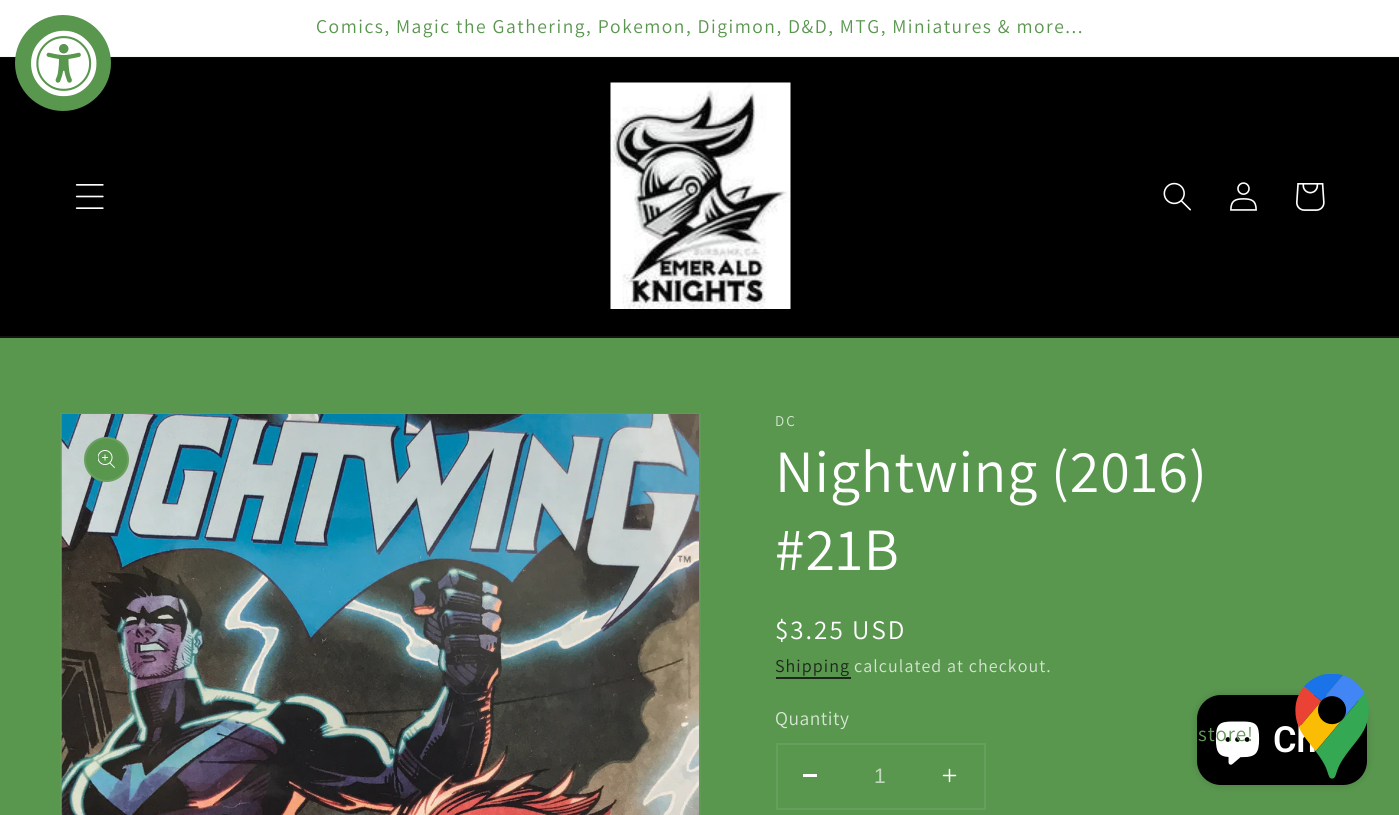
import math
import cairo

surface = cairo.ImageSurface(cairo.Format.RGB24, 1399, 815)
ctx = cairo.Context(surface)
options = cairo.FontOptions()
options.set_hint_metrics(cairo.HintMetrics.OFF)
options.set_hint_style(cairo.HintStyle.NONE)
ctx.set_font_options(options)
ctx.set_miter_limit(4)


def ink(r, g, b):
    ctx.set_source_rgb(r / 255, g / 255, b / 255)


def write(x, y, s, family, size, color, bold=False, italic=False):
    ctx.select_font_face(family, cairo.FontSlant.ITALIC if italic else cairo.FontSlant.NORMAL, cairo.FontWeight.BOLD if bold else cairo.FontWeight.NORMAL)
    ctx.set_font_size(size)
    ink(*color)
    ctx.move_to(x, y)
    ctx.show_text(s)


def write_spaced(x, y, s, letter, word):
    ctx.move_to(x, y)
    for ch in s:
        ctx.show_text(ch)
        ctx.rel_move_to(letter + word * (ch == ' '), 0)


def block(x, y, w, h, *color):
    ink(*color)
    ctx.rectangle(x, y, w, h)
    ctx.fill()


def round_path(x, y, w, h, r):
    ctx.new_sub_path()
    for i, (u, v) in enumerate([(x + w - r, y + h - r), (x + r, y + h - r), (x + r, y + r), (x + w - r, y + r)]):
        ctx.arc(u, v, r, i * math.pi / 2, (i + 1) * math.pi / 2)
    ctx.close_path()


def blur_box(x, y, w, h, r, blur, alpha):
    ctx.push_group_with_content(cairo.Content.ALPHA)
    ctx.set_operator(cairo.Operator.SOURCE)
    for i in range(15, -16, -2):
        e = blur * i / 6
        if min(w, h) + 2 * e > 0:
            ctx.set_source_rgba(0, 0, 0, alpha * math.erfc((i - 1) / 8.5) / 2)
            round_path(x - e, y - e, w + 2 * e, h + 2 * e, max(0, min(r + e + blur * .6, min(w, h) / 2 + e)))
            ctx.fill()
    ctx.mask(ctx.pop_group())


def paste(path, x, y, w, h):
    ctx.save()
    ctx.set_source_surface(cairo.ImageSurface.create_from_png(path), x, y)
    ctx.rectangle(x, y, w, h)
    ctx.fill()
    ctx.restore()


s1 = dict(family="Liberation Sans", size=21, color=(195, 217, 191))
s2 = dict(family="Roboto SemiBold", size=36, color=(255, 255, 255))

ink(89, 150, 78)
ctx.paint()
block(0, 0, 1399, 56, 255, 255, 255)
block(0, 56, 1399, 1, 242, 247, 241)
block(0, 58, 1399, 278, 0, 0, 0)
block(0, 57, 1399, 1, 7, 12, 6)
ink(89, 150, 78)
ctx.arc(63, 63, 48, 0, 2 * math.pi)
ctx.fill()
paste("pic1.png", 31, 30, 66, 67)
ctx.select_font_face("Assistant")
ctx.set_font_size(19.5)
write_spaced(316, 33, "Comics, Magic the Gathering, Pokemon, Digimon, D&D, MTG, Miniatures & more...", 1.5, 0)
block(0, 336, 1399, 2, 20, 20, 20)
paste("pic2.png", 75, 184, 29, 25)
paste("pic3.png", 610, 82, 181, 227)
paste("pic4.png", 1163, 182, 28, 29)
paste("pic5.png", 1230, 182, 27, 29)
paste("pic6.png", 1296, 183, 29, 28)
ctx.rectangle(61, 414, 639, 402)
ink(96, 154, 85)
ctx.stroke()
paste("pic7.png", 61, 414, 638, 401)
ink(89, 150, 78)
ctx.arc(106.5, 459.5, 22.5, 0, 2 * math.pi)
ctx.fill()
ctx.arc(106.5, 459.5, 21.5, 0, 2 * math.pi)
ctx.set_source_rgba(1, 1, 1, 0.1)
ctx.stroke()
paste("pic8.png", 98, 450, 17, 18)
ctx.set_font_size(15)
ink(214, 229, 211)
write_spaced(775, 426, "DC", 2, 0)
ctx.set_font_size(60)
ink(255, 255, 255)
write_spaced(775, 492, "Nightwing (2016)", 0.9, 0)
write_spaced(775, 570, "#21B", 0.9, 0)
ctx.set_font_size(27)
write_spaced(775, 639, "$3.25 USD", 2, 0)
ctx.set_font_size(18)
ink(29, 38, 27)
write_spaced(775, 672, "Shipping", 1.05, 0)
block(776, 677, 75, 2, 29, 38, 27)
ink(214, 229, 211)
write_spaced(854, 672, "calculated at checkout.", 1.05, 0)
ctx.set_font_size(19.5)
write_spaced(775, 725, "Quantity", 0.5, 0)
ctx.rectangle(777, 744, 208, 65)
ink(102, 158, 92)
ctx.stroke()
block(803, 774, 14, 3, 255, 255, 255)
write(874, 783, "1", **s1)
paste("pic9.png", 942, 768, 15, 15)
ink(0, 0, 0)
blur_box(1197, 695, 170, 90, 24, 4, 0.15)
ink(0, 0, 0)
round_path(1197, 695, 170, 90, 24)
ctx.fill()
paste("pic11.png", 1215, 721, 45, 44)
ctx.select_font_face("Assistant")
ink(101, 151, 92)
write_spaced(1198, 741, "store!", 0.9, 0)
write(1273, 752, "Ch", **s2)
paste("pic10.png", 1295, 674, 74, 105)
surface.write_to_png("screenshot.png")
